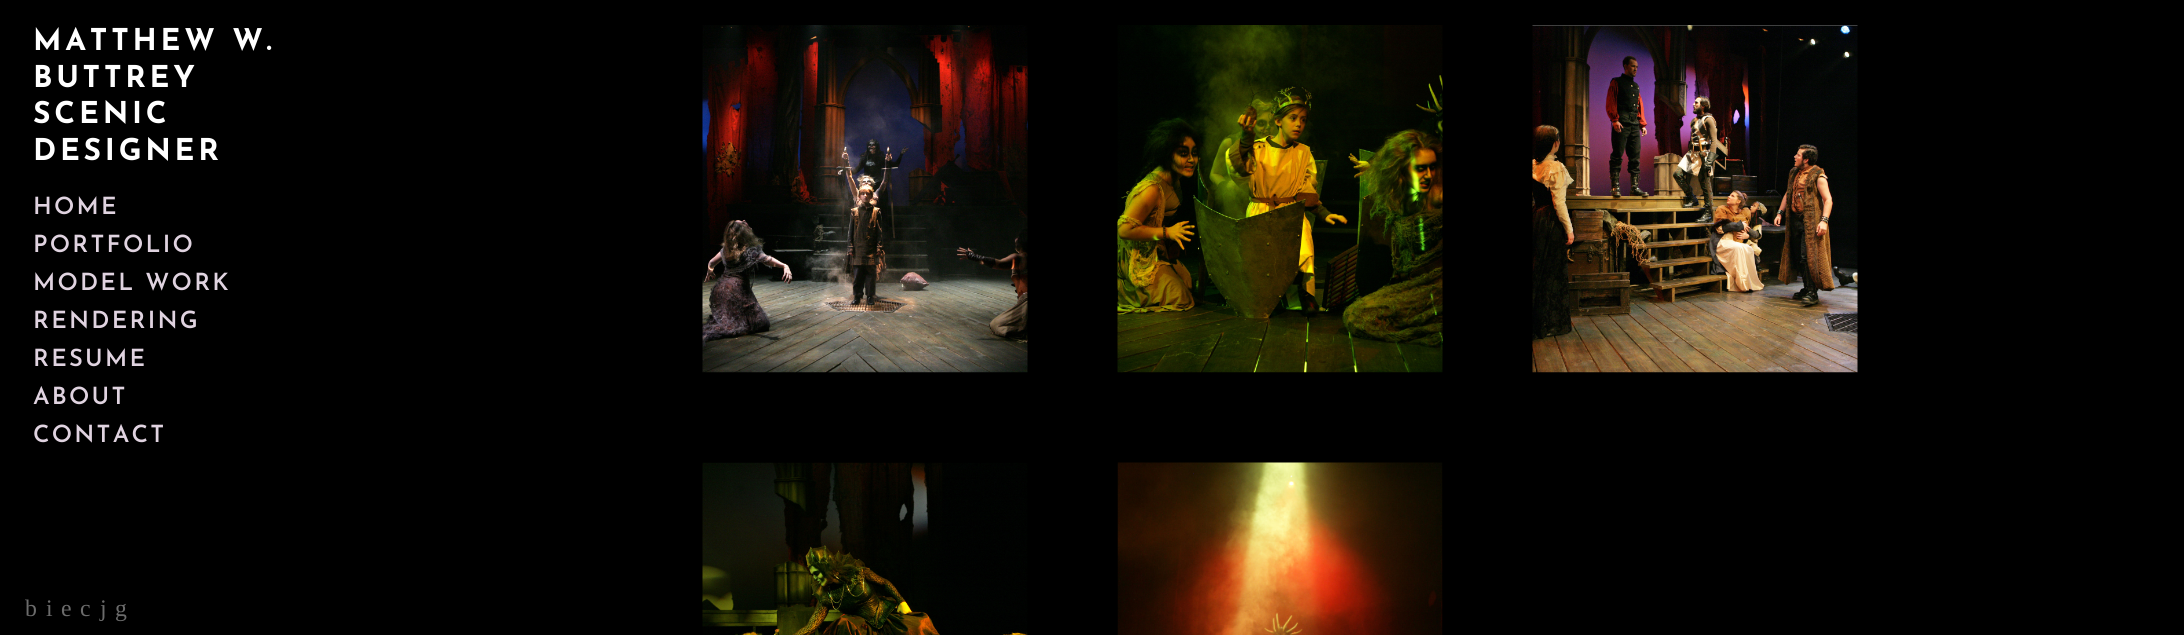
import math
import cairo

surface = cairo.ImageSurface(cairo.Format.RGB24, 2184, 635)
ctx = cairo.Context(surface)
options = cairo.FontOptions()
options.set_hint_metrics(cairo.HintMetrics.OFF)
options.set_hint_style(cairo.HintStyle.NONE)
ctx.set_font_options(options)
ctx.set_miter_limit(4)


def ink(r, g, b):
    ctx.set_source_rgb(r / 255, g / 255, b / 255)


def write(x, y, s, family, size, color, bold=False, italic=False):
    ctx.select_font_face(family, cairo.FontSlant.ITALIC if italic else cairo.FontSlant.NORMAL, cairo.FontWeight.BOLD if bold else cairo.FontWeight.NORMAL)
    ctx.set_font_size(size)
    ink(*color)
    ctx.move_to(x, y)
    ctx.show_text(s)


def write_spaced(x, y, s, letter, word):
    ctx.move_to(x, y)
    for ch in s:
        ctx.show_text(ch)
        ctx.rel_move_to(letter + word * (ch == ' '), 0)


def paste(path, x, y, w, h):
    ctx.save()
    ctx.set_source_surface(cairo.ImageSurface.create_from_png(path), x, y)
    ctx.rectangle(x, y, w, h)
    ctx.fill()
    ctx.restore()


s1 = dict(family="Liberation Serif", size=23.75, color=(107, 107, 107))

ink(0, 0, 0)
ctx.paint()
ctx.select_font_face("Josefin Sans", cairo.FontSlant.NORMAL, cairo.FontWeight.BOLD)
ctx.set_font_size(30)
ink(255, 255, 255)
write_spaced(33, 50, "MATTHEW W.", 3.75, 0)
write_spaced(33, 87, "BUTTREY", 3.75, 0)
write_spaced(33, 123, "SCENIC", 3.75, 0)
write_spaced(33, 160, "DESIGNER", 3.75, 0)
ctx.select_font_face("Josefin Sans SemiBold")
ctx.set_font_size(23.75)
ink(224, 211, 224)
write_spaced(33, 214, "HOME", 2.25, 0)
write_spaced(33, 252, "PORTFOLIO", 2.25, 0)
write_spaced(33, 290, "MODEL WORK", 2.25, 0)
write_spaced(33, 328, "RENDERING", 2.25, 0)
write_spaced(33, 366, "RESUME", 2.25, 0)
write_spaced(33, 404, "ABOUT", 2.25, 0)
write_spaced(33, 442, "CONTACT", 2.25, 0)
paste("pic1.png", 702, 25, 326, 348)
paste("pic2.png", 1117, 25, 326, 348)
paste("pic3.png", 1532, 25, 326, 348)
paste("pic4.png", 702, 462, 326, 173)
paste("pic5.png", 1117, 462, 326, 173)
write(25, 616, "b", **s1)
write(46, 616, "i", **s1)
write(61, 616, "e", **s1)
write(80, 616, "c", **s1)
write(100, 616, "j", **s1)
write(115, 616, "g", **s1)
surface.write_to_png("screenshot.png")
